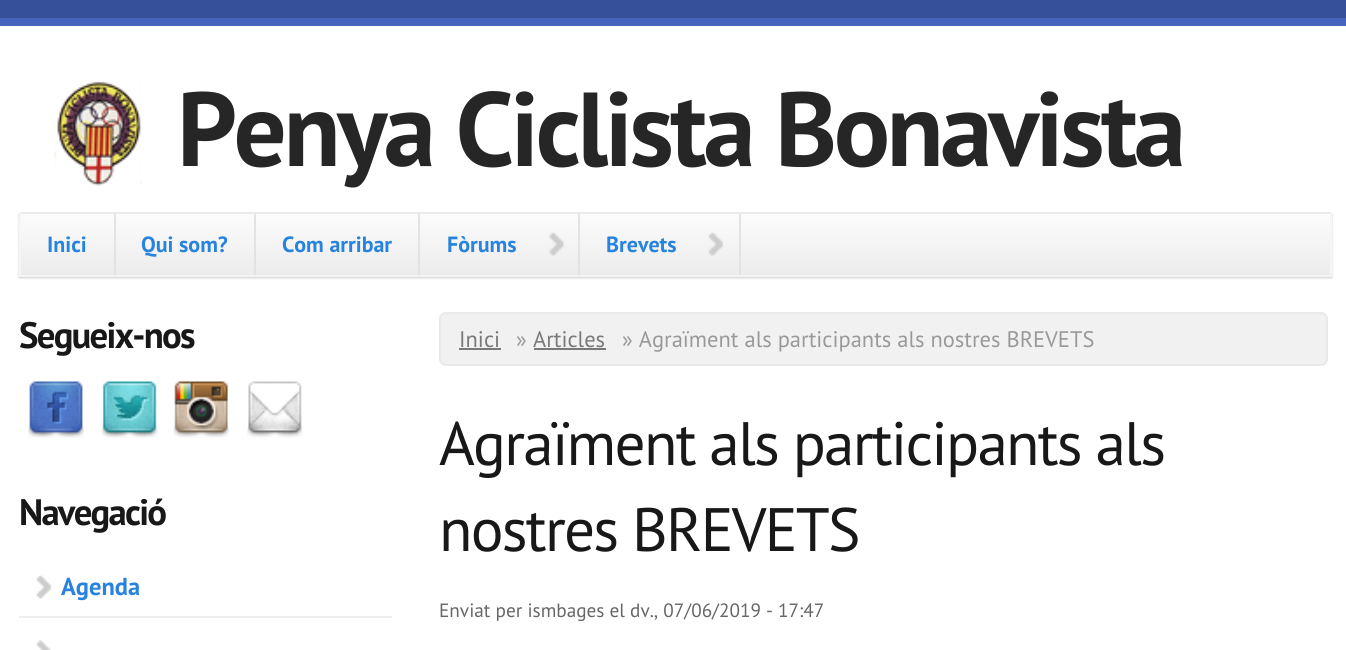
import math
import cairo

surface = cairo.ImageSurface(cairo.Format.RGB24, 1346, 650)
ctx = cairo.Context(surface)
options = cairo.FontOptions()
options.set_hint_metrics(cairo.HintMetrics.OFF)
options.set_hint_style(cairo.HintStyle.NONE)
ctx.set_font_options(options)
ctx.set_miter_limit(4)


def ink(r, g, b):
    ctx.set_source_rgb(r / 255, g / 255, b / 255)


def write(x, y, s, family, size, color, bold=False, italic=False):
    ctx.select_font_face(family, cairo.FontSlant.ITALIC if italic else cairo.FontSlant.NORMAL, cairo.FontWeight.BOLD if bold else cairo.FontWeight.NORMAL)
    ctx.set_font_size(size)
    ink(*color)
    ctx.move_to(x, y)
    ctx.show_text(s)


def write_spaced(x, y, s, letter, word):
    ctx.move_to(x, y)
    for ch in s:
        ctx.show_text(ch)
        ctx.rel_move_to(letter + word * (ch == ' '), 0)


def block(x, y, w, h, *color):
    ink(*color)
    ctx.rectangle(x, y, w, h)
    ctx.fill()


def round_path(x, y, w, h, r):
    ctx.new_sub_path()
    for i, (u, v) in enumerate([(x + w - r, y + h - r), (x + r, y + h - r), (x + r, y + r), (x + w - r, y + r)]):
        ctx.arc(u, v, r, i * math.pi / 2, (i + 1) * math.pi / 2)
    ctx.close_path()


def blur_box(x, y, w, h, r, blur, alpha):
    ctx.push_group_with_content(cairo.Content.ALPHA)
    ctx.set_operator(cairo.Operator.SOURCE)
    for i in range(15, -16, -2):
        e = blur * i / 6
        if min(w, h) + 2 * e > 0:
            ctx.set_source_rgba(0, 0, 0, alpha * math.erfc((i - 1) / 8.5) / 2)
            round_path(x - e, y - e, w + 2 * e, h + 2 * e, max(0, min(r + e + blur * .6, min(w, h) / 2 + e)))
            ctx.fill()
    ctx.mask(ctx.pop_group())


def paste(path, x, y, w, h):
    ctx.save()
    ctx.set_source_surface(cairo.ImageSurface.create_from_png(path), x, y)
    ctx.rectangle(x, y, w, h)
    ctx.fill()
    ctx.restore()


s1 = dict(family="PT Sans", size=22, color=(40, 131, 222), bold=True)
s2 = dict(family="PT Sans", size=24.5, color=(40, 131, 222), bold=True)
s3 = dict(family="PT Sans", size=22.5, color=(121, 121, 121))
s4 = dict(family="PT Sans", size=22.5, color=(153, 153, 153))
s5 = dict(family="PT Sans", size=19.25, color=(102, 102, 102))

ink(255, 255, 255)
ctx.paint()
block(0, 0, 1346, 18, 55, 81, 153)
block(0, 18, 1346, 8, 69, 101, 190)
paste("pic1.png", 54, 81, 88, 105)
ctx.select_font_face("PT Sans", cairo.FontSlant.NORMAL, cairo.FontWeight.BOLD)
ctx.set_font_size(105)
ink(38, 38, 38)
write_spaced(177, 166, "Penya Ciclista Bonavista", -3.5, 0)
ink(0, 0, 0)
blur_box(19, 214, 1313, 64, 0, 1, 0.2)
gradient = cairo.LinearGradient(676, 213, 676, 275)
gradient.add_color_stop_rgba(0, 0.988, 0.988, 0.988, 1)
gradient.add_color_stop_rgba(1, 0.925, 0.925, 0.925, 1)
ctx.set_source(gradient)
ctx.rectangle(21, 214, 1309, 61)
ctx.fill()
block(19, 212, 1313, 2, 234, 234, 234)
block(1330, 212, 2, 65, 245, 245, 245)
block(19, 275, 1313, 2, 245, 245, 245)
block(19, 212, 2, 65, 245, 245, 245)
block(114, 214, 2, 61, 227, 227, 227)
write(47, 252, "Inici", **s1)
block(254, 214, 2, 61, 227, 227, 227)
write(141, 252, "Qui som?", **s1)
block(418, 214, 2, 61, 227, 227, 227)
write(282, 252, "Com arribar", **s1)
block(578, 214, 2, 61, 227, 227, 227)
paste("pic2.png", 549, 232, 15, 24)
write(447, 252, "Fòrums", **s1)
block(739, 214, 2, 61, 227, 227, 227)
paste("pic3.png", 708, 232, 15, 24)
write(606, 252, "Brevets", **s1)
ctx.set_font_size(36.75)
ink(24, 24, 24)
write_spaced(19, 348, "Segueix-nos", -1.75, 0)
paste("pic4.png", 28, 381, 56, 57)
paste("pic5.png", 101, 381, 57, 57)
paste("pic6.png", 173, 381, 56, 57)
paste("pic7.png", 247, 381, 56, 57)
write_spaced(19, 525, "Navegació", -1.75, 0)
paste("pic8.png", 36, 575, 15, 24)
block(19, 616, 373, 2, 238, 238, 238)
write(61, 595, "Agenda", **s2)
paste("pic9.png", 36, 640, 15, 10)
ink(241, 241, 241)
round_path(440, 313, 887, 52, 6)
ctx.fill_preserve()
ink(233, 233, 233)
ctx.stroke()
write(459, 347, "Inici", **s3)
block(459, 348, 42, 2, 121, 121, 121)
write(516, 347, "»", **s4)
write(533, 347, "Articles", **s3)
block(534, 348, 72, 2, 121, 121, 121)
write(622, 347, "» Agraïment als participants als nostres BREVETS", **s4)
ctx.set_font_size(61.25)
ink(24, 24, 24)
write_spaced(439, 465, "Agraïment als participants als", -1.75, 0)
write_spaced(439, 551, "nostres BREVETS", -1.75, 0)
write(439, 617, "Enviat per ismbages el dv., 07/06/2019 - 17:47", **s5)
surface.write_to_png("screenshot.png")
